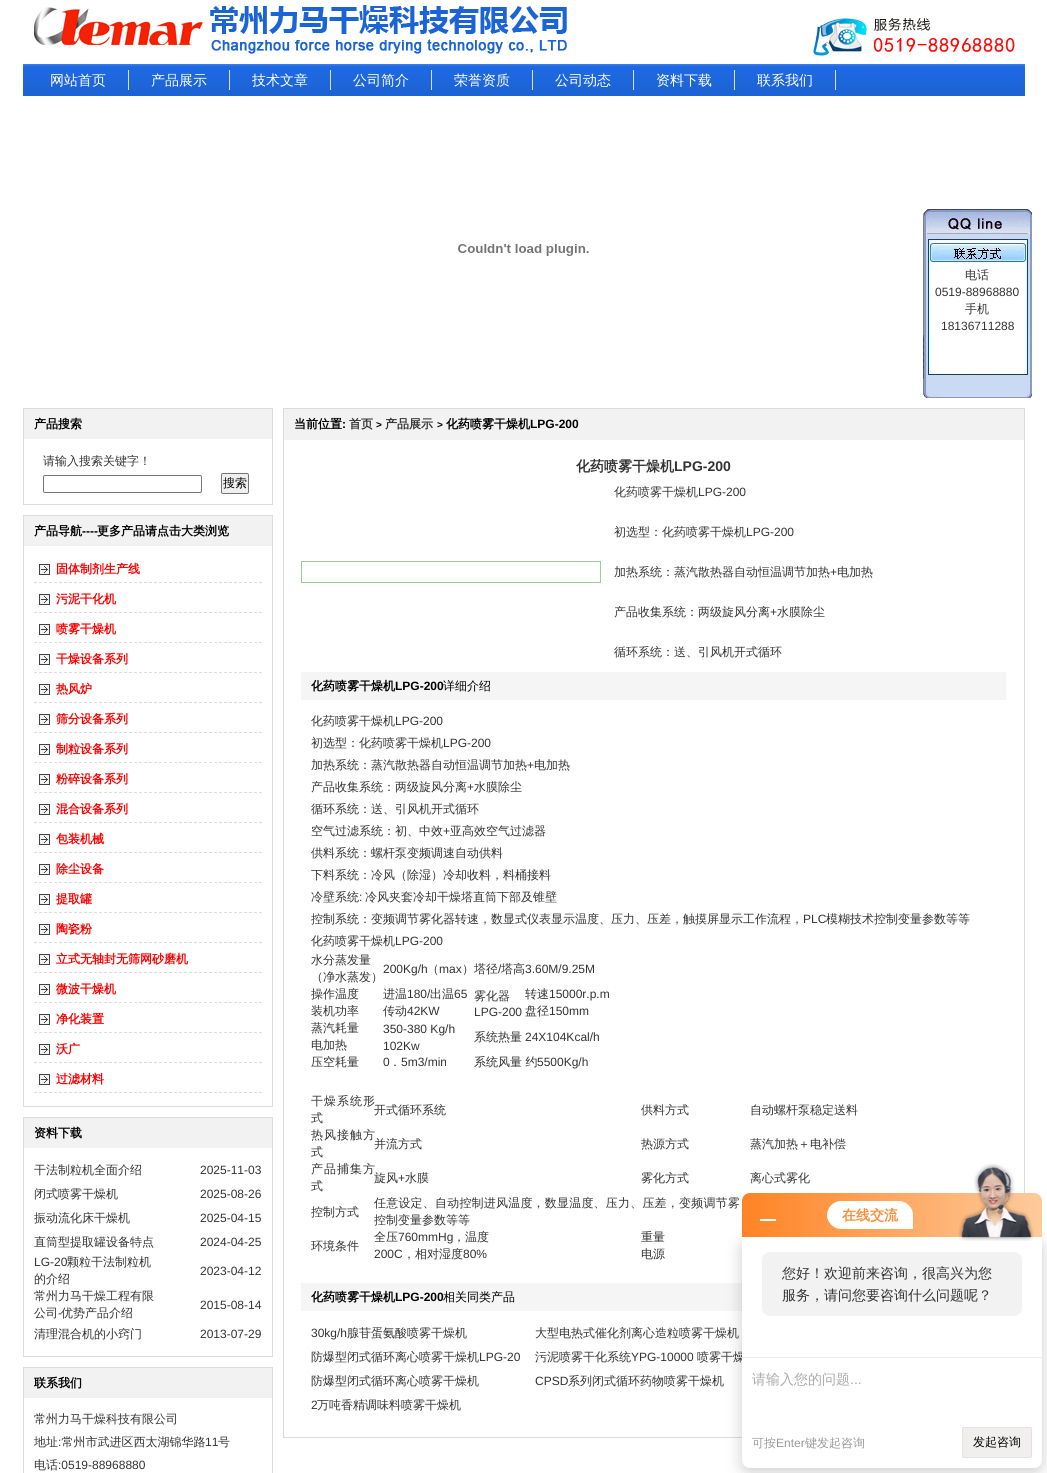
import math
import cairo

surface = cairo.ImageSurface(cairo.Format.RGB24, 1047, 1473)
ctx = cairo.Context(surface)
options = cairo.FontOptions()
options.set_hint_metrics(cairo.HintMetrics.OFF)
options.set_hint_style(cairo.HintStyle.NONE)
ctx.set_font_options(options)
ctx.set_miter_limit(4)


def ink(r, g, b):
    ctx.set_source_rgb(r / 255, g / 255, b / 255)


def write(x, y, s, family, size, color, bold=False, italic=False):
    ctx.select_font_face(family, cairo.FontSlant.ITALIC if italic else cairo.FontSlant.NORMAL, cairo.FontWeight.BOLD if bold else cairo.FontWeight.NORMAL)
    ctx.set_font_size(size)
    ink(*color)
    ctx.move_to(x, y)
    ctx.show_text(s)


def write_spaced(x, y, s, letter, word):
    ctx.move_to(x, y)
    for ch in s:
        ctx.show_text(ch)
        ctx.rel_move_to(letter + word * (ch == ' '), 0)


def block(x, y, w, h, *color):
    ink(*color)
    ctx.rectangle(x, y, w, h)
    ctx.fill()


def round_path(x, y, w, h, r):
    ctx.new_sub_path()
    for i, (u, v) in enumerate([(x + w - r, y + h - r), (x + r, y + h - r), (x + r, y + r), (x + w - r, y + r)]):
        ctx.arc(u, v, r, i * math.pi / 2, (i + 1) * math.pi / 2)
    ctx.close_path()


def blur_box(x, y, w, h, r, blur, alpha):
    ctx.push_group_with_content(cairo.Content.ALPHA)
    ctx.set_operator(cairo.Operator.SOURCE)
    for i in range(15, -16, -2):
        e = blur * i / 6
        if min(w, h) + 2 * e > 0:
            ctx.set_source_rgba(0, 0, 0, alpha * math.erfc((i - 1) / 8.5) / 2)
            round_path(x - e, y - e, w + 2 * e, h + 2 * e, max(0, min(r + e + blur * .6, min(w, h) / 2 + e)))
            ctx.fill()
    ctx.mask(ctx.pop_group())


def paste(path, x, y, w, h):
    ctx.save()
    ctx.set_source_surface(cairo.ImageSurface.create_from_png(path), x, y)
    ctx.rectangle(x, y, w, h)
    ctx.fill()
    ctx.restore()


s1 = dict(family="WenQuanYi Zen Hei Medium", size=14, color=(255, 255, 255))
s2 = dict(family="WenQuanYi Zen Hei Medium", size=12, color=(51, 51, 51))
s3 = dict(family="Liberation Sans", size=12, color=(51, 51, 51))
s4 = dict(family="WenQuanYi Zen Hei", size=12, color=(0, 0, 0), bold=True)
s5 = dict(family="WenQuanYi Zen Hei Medium", size=12, color=(0, 0, 0))
s6 = dict(family="Liberation Sans", size=12, color=(0, 0, 0), bold=True)
s7 = dict(family="WenQuanYi Zen Hei", size=12, color=(255, 0, 0), bold=True)
s8 = dict(family="WenQuanYi Zen Hei", size=12, color=(51, 51, 51), bold=True)
s9 = dict(family="Liberation Sans", size=10, color=(0, 0, 0), bold=True)
s10 = dict(family="WenQuanYi Zen Hei", size=14, color=(51, 51, 51), bold=True)
s11 = dict(family="Liberation Sans", size=14, color=(51, 51, 51), bold=True)
s12 = dict(family="WenQuanYi Zen Hei", size=14, color=(251, 139, 54), bold=True)
s13 = dict(family="WenQuanYi Zen Hei Medium", size=14, color=(51, 51, 51))
s14 = dict(family="WenQuanYi Zen Hei Medium", size=14, color=(170, 170, 170))
s15 = dict(family="Liberation Sans", size=14, color=(170, 170, 170))
s16 = dict(family="WenQuanYi Zen Hei Medium", size=12, color=(153, 153, 153))
s17 = dict(family="Liberation Sans", size=12, color=(153, 153, 153))

ink(255, 255, 255)
ctx.paint()
paste("pic1.png", 34, 3, 981, 56)
paste("pic2.png", 23, 64, 1002, 32)
block(128, 70, 1, 20, 222, 222, 222)
write(50, 85, "网站首页", **s1)
block(229, 70, 1, 20, 222, 222, 222)
write(151, 85, "产品展示", **s1)
block(330, 70, 1, 20, 222, 222, 222)
write(252, 85, "技术文章", **s1)
block(431, 70, 1, 20, 222, 222, 222)
write(353, 85, "公司简介", **s1)
block(532, 70, 1, 20, 222, 222, 222)
write(454, 85, "荣誉资质", **s1)
block(633, 70, 1, 20, 222, 222, 222)
write(555, 85, "公司动态", **s1)
block(734, 70, 1, 20, 222, 222, 222)
write(656, 85, "资料下载", **s1)
block(835, 70, 1, 20, 222, 222, 222)
write(757, 85, "联系我们", **s1)
paste("pic3.png", 458, 244, 131, 12)
paste("pic4.png", 923, 209, 109, 126)
write(965, 279, "电话", **s2)
write(935, 296, "0519-88968880", **s3)
write(965, 313, "手机", **s2)
write(941, 330, "18136711288", **s3)
paste("pic5.png", 923, 335, 109, 34)
paste("pic6.png", 923, 369, 109, 29)
block(23, 408, 250, 1, 219, 221, 220)
block(272, 408, 1, 97, 219, 221, 220)
block(23, 504, 250, 1, 219, 221, 220)
block(23, 408, 1, 97, 219, 221, 220)
block(24, 409, 248, 30, 242, 242, 242)
write(34, 428, "产品搜索", **s4)
write(43, 465, "请输入搜索关键字！", **s2)
round_path(43.5, 475.5, 158, 17, 1.5)
ink(118, 118, 118)
ctx.set_line_width(1)
ctx.stroke()
ink(239, 239, 239)
round_path(221.5, 473.5, 27, 20, 1.5)
ctx.fill_preserve()
ink(118, 118, 118)
ctx.stroke()
write(223, 487, "搜索", **s5)
block(23, 515, 250, 1, 219, 221, 220)
block(272, 515, 1, 592, 219, 221, 220)
block(23, 1106, 250, 1, 219, 221, 220)
block(23, 515, 1, 592, 219, 221, 220)
block(24, 516, 248, 30, 242, 242, 242)
write(34, 535, "产品导航", **s4)
write(82, 535, "----", **s6)
write(97, 535, "更多产品请点击大类浏览", **s4)
paste("pic7.png", 39, 564, 11, 11)
ctx.new_path()
ctx.move_to(34, 582.5)
ctx.line_to(262, 582.5)
ink(221, 221, 221)
ctx.set_dash([3, 2])
ctx.stroke()
write(56, 573, "固体制剂生产线", **s7)
paste("pic7.png", 39, 594, 11, 11)
ctx.new_path()
ctx.move_to(34, 612.5)
ctx.line_to(262, 612.5)
ink(221, 221, 221)
ctx.stroke()
write(56, 603, "污泥干化机", **s7)
paste("pic7.png", 39, 624, 11, 11)
ctx.new_path()
ctx.move_to(34, 642.5)
ctx.line_to(262, 642.5)
ink(221, 221, 221)
ctx.stroke()
write(56, 633, "喷雾干燥机", **s7)
paste("pic7.png", 39, 654, 11, 11)
ctx.new_path()
ctx.move_to(34, 672.5)
ctx.line_to(262, 672.5)
ink(221, 221, 221)
ctx.stroke()
write(56, 663, "干燥设备系列", **s7)
paste("pic7.png", 39, 684, 11, 11)
ctx.new_path()
ctx.move_to(34, 702.5)
ctx.line_to(262, 702.5)
ink(221, 221, 221)
ctx.stroke()
write(56, 693, "热风炉", **s7)
paste("pic7.png", 39, 714, 11, 11)
ctx.new_path()
ctx.move_to(34, 732.5)
ctx.line_to(262, 732.5)
ink(221, 221, 221)
ctx.stroke()
write(56, 723, "筛分设备系列", **s7)
paste("pic7.png", 39, 744, 11, 11)
ctx.new_path()
ctx.move_to(34, 762.5)
ctx.line_to(262, 762.5)
ink(221, 221, 221)
ctx.stroke()
write(56, 753, "制粒设备系列", **s7)
paste("pic7.png", 39, 774, 11, 11)
ctx.new_path()
ctx.move_to(34, 792.5)
ctx.line_to(262, 792.5)
ink(221, 221, 221)
ctx.stroke()
write(56, 783, "粉碎设备系列", **s7)
paste("pic7.png", 39, 804, 11, 11)
ctx.new_path()
ctx.move_to(34, 822.5)
ctx.line_to(262, 822.5)
ink(221, 221, 221)
ctx.stroke()
write(56, 813, "混合设备系列", **s7)
paste("pic7.png", 39, 834, 11, 11)
ctx.new_path()
ctx.move_to(34, 852.5)
ctx.line_to(262, 852.5)
ink(221, 221, 221)
ctx.stroke()
write(56, 843, "包装机械", **s7)
paste("pic7.png", 39, 864, 11, 11)
ctx.new_path()
ctx.move_to(34, 882.5)
ctx.line_to(262, 882.5)
ink(221, 221, 221)
ctx.stroke()
write(56, 873, "除尘设备", **s7)
paste("pic7.png", 39, 894, 11, 11)
ctx.new_path()
ctx.move_to(34, 912.5)
ctx.line_to(262, 912.5)
ink(221, 221, 221)
ctx.stroke()
write(56, 903, "提取罐", **s7)
paste("pic7.png", 39, 924, 11, 11)
ctx.new_path()
ctx.move_to(34, 942.5)
ctx.line_to(262, 942.5)
ink(221, 221, 221)
ctx.stroke()
write(56, 933, "陶瓷粉", **s7)
paste("pic7.png", 39, 954, 11, 11)
ctx.new_path()
ctx.move_to(34, 972.5)
ctx.line_to(262, 972.5)
ink(221, 221, 221)
ctx.stroke()
write(56, 963, "立式无轴封无筛网砂磨机", **s7)
paste("pic7.png", 39, 984, 11, 11)
ctx.new_path()
ctx.move_to(34, 1002.5)
ctx.line_to(262, 1002.5)
ink(221, 221, 221)
ctx.stroke()
write(56, 993, "微波干燥机", **s7)
paste("pic7.png", 39, 1014, 11, 11)
ctx.new_path()
ctx.move_to(34, 1032.5)
ctx.line_to(262, 1032.5)
ink(221, 221, 221)
ctx.stroke()
write(56, 1023, "净化装置", **s7)
paste("pic7.png", 39, 1044, 11, 11)
ctx.new_path()
ctx.move_to(34, 1062.5)
ctx.line_to(262, 1062.5)
ink(221, 221, 221)
ctx.stroke()
write(56, 1053, "沃广", **s7)
paste("pic7.png", 39, 1074, 11, 11)
ctx.new_path()
ctx.move_to(34, 1092.5)
ctx.line_to(262, 1092.5)
ink(221, 221, 221)
ctx.stroke()
write(56, 1083, "过滤材料", **s7)
block(23, 1117, 250, 1, 219, 221, 220)
block(272, 1117, 1, 240, 219, 221, 220)
block(23, 1356, 250, 1, 219, 221, 220)
block(23, 1117, 1, 240, 219, 221, 220)
block(24, 1118, 248, 30, 242, 242, 242)
write(34, 1137, "资料下载", **s4)
write(34, 1174, "干法制粒机全面介绍", **s2)
write(200, 1174, "2025-11-03", **s3)
write(34, 1198, "闭式喷雾干燥机", **s2)
write(200, 1198, "2025-08-26", **s3)
write(34, 1222, "振动流化床干燥机", **s2)
write(200, 1222, "2025-04-15", **s3)
write(34, 1246, "直筒型提取罐设备特点", **s2)
write(200, 1246, "2024-04-25", **s3)
write(34, 1266, "LG-20", **s3)
write(67, 1266, "颗粒干法制粒机", **s2)
write(34, 1283, "的介绍", **s2)
write(200, 1275, "2023-04-12", **s3)
write(34, 1300, "常州力马干燥工程有限", **s2)
write(34, 1317, "公司", **s2)
write(58, 1317, "-", **s3)
write(61, 1317, "优势产品介绍", **s2)
write(200, 1309, "2015-08-14", **s3)
write(34, 1338, "清理混合机的小窍门", **s2)
write(200, 1338, "2013-07-29", **s3)
block(23, 1367, 250, 1, 219, 221, 220)
block(272, 1367, 1, 106, 219, 221, 220)
block(23, 1367, 1, 106, 219, 221, 220)
block(24, 1368, 248, 30, 242, 242, 242)
write(34, 1387, "联系我们", **s4)
write(34, 1423, "常州力马干燥科技有限公司", **s2)
write(34, 1446, "地址 常州市武进区西太湖锦华路", **s2)
write(205, 1446, "11", **s3)
write(218, 1446, "号", **s2)
write(58, 1446, ":", **s3)
write(34, 1469, "电话", **s2)
write(58, 1469, ":0519-88968880", **s3)
block(283, 408, 742, 1, 219, 221, 220)
block(1024, 408, 1, 785, 219, 221, 220)
block(283, 1437, 459, 1, 219, 221, 220)
block(283, 408, 1, 1030, 219, 221, 220)
block(284, 409, 740, 31, 242, 242, 242)
write(294, 428, "当前位置", **s4)
write(342, 428, ":", **s6)
write(349, 428, "首页", **s8)
write(376, 428, ">", **s9)
write(385, 428, "产品展示", **s8)
write(437, 428, ">", **s9)
write(446, 428, "化药喷雾干燥机", **s4)
write(530, 428, "LPG-200", **s6)
write(576, 471, "化药喷雾干燥机", **s10)
write(674, 471, "LPG-200", **s11)
block(301, 561, 300, 1, 159, 205, 154)
block(600, 561, 1, 22, 159, 205, 154)
block(301, 582, 300, 1, 159, 205, 154)
block(301, 561, 1, 22, 159, 205, 154)
write(614, 496, "化药喷雾干燥机", **s2)
write(698, 496, "LPG-200", **s3)
write(614, 536, "初选型：化药喷雾干燥机", **s2)
write(746, 536, "LPG-200", **s3)
write(614, 576, "加热系统：蒸汽散热器自动恒温调节加热", **s2)
write(830, 576, "+", **s3)
write(837, 576, "电加热", **s2)
write(614, 616, "产品收集系统：两级旋风分离", **s2)
write(770, 616, "+", **s3)
write(777, 616, "水膜除尘", **s2)
write(614, 656, "循环系统：送、引风机开式循环", **s2)
block(301, 672, 705, 28, 245, 245, 245)
write(311, 690, "化药喷雾干燥机", **s4)
write(395, 690, "LPG-200", **s6)
write(443, 690, "详细介绍", **s5)
write(311, 725, "化药喷雾干燥机", **s2)
write(395, 725, "LPG-200", **s3)
write(311, 747, "初选型：化药喷雾干燥机", **s2)
write(443, 747, "LPG-200", **s3)
write(311, 769, "加热系统：蒸汽散热器自动恒温调节加热", **s2)
write(527, 769, "+", **s3)
write(534, 769, "电加热", **s2)
write(311, 791, "产品收集系统：两级旋风分离", **s2)
write(467, 791, "+", **s3)
write(474, 791, "水膜除尘", **s2)
write(311, 813, "循环系统：送、引风机开式循环", **s2)
write(311, 835, "空气过滤系统：初、中效", **s2)
write(443, 835, "+", **s3)
write(450, 835, "亚高效空气过滤器", **s2)
write(311, 857, "供料系统：螺杆泵变频调速自动供料", **s2)
write(311, 879, "下料系统：冷风（除湿）冷却收料，料桶接料", **s2)
write(311, 901, "冷壁系统", **s2)
write(359, 901, ":", **s3)
write(365, 901, "冷风夹套冷却干燥塔直筒下部及锥壁", **s2)
write(311, 923, "控制系统：变频调节雾化器转速，数显式仪表显示温度、压力、压差，触摸屏显示工作流程，", **s2)
write(803, 923, "PLC", **s3)
write(826, 923, "模糊技术控制变量参数等等", **s2)
write(311, 945, "化药喷雾干燥机", **s2)
write(395, 945, "LPG-200", **s3)
write(311, 964, "水分蒸发量", **s2)
write(311, 981, "（净水蒸发）", **s2)
write(383, 973, "200Kg/h", **s3)
write(427, 973, "（", **s2)
write(439, 973, "max", **s3)
write(462, 973, "）塔径", **s2)
write(498, 973, "/", **s3)
write(501, 973, "塔高", **s2)
write(525, 973, "3.60M/9.25M", **s3)
write(311, 998, "操作温度", **s2)
write(383, 998, "进温", **s2)
write(407, 998, "180/", **s3)
write(430, 998, "出温", **s2)
write(454, 998, "65", **s3)
write(474, 1000, "雾化器", **s2)
write(474, 1016, "LPG-200", **s3)
write(525, 998, "转速", **s2)
write(549, 998, "15000r.p.m", **s3)
write(525, 1015, "盘径", **s2)
write(549, 1015, "150mm", **s3)
write(311, 1015, "装机功率", **s2)
write(383, 1015, "传动", **s2)
write(407, 1015, "42KW", **s3)
write(311, 1032, "蒸汽耗量", **s2)
write(383, 1033, "350-380 Kg/h", **s3)
write(474, 1041, "系统热量", **s2)
write(525, 1041, "24X104Kcal/h", **s3)
write(311, 1049, "电加热", **s2)
write(383, 1050, "102Kw", **s3)
write(311, 1066, "压空耗量", **s2)
write(383, 1066, "0", **s3)
write(389, 1066, "．", **s2)
write(401, 1066, "5m3/min", **s3)
write(474, 1066, "系统风量 约", **s2)
write(537, 1066, "5500Kg/h", **s3)
ctx.select_font_face("WenQuanYi Zen Hei Medium")
write_spaced(311, 1105, "干燥系统形", 1, 0)
write(311, 1122, "式", **s2)
write(374, 1114, "开式循环系统", **s2)
write(641, 1114, "供料方式", **s2)
write(750, 1114, "自动螺杆泵稳定送料", **s2)
write_spaced(311, 1139, "热风接触方", 1, 0)
write(311, 1156, "式", **s2)
write(374, 1148, "并流方式", **s2)
write(641, 1148, "热源方式", **s2)
write(750, 1148, "蒸汽加热＋电补偿", **s2)
write_spaced(311, 1173, "产品捕集方", 1, 0)
write(311, 1190, "式", **s2)
write(374, 1182, "旋风", **s2)
write(398, 1182, "+", **s3)
write(405, 1182, "水膜", **s2)
write(641, 1182, "雾化方式", **s2)
write(750, 1182, "离心式雾化", **s2)
write(311, 1216, "控制方式", **s2)
write_spaced(374, 1207, "任意设定、自动控制进风温度，数显温度、压力、压差，变频调节雾", 0.2, 0)
write(374, 1224, "控制变量参数等等", **s2)
write(374, 1241, "全压", **s2)
write(398, 1241, "760mmHg", **s3)
write(453, 1241, "，温度", **s2)
write(374, 1258, "200C", **s3)
write(403, 1258, "，相对湿度", **s2)
write(463, 1258, "80%", **s3)
write(641, 1241, "重量", **s2)
write(311, 1250, "环境条件", **s2)
write(641, 1258, "电源", **s2)
block(301, 1283, 441, 28, 245, 245, 245)
write(311, 1301, "化药喷雾干燥机", **s4)
write(395, 1301, "LPG-200", **s6)
write(443, 1301, "相关同类产品", **s5)
write(311, 1337, "30kg/h", **s3)
write(347, 1337, "腺苷蛋氨酸喷雾干燥机", **s2)
write(535, 1337, "大型电热式催化剂离心造粒喷雾干燥机", **s2)
write(311, 1361, "防爆型闭式循环离心喷雾干燥机", **s2)
write(479, 1361, "LPG-20", **s3)
write(535, 1361, "污泥喷雾干化系统", **s2)
write(631, 1361, "YPG-10000", **s3)
write(697, 1361, "喷雾干燥", **s2)
write(311, 1385, "防爆型闭式循环离心喷雾干燥机", **s2)
write(535, 1385, "CPSD", **s3)
write(568, 1385, "系列闭式循环药物喷雾干燥机", **s2)
write(311, 1409, "2", **s3)
write(317, 1409, "万吨香精调味料喷雾干燥机", **s2)
ink(0, 0, 0)
blur_box(742, 1241, 300, 231, 8, 8, 0.2)
gradient = cairo.LinearGradient(742, 1215, 1042, 1215)
gradient.add_color_stop_rgba(0, 1, 0.514, 0.141, 1)
gradient.add_color_stop_rgba(1, 0.996, 0.796, 0.612, 1)
ctx.set_source(gradient)
ctx.new_path()
ctx.move_to(750, 1193)
ctx.line_to(1034, 1193)
ctx.curve_to(1038.5, 1193, 1042, 1196.5, 1042, 1201)
ctx.line_to(1042, 1237)
ctx.line_to(742, 1237)
ctx.line_to(742, 1201)
ctx.curve_to(742, 1196.5, 745.5, 1193, 750, 1193)
ctx.close_path()
ctx.fill()
block(760, 1219, 16, 2, 255, 255, 255)
ctx.new_path()
ctx.move_to(841, 1201)
ctx.line_to(899, 1201)
ctx.curve_to(906.5, 1201, 913, 1207.5, 913, 1215)
ctx.line_to(913, 1229)
ctx.line_to(841, 1229)
ctx.curve_to(833.5, 1229, 827, 1222.5, 827, 1215)
ctx.curve_to(827, 1207.5, 833.5, 1201, 841, 1201)
ctx.close_path()
ctx.fill()
write(842, 1220, "在线交流", **s12)
ink(255, 255, 255)
ctx.new_path()
ctx.move_to(742, 1237)
ctx.line_to(1042, 1237)
ctx.line_to(1042, 1460)
ctx.curve_to(1042, 1464.5, 1038.5, 1468, 1034, 1468)
ctx.line_to(750, 1468)
ctx.curve_to(745.5, 1468, 742, 1464.5, 742, 1460)
ctx.close_path()
ctx.fill()
paste("pic8.png", 958, 1163, 76, 78)
ink(242, 242, 242)
round_path(762, 1252, 260, 64, 8)
ctx.fill()
write(782, 1278, "您好！欢迎前来咨询，很高兴为您", **s13)
write(782, 1300, "服务，请问您要咨询什么问题呢？", **s13)
block(742, 1357, 300, 1, 234, 234, 234)
write(752, 1384, "请输入您的问题", **s14)
write(850, 1384, "...", **s15)
write(752, 1447, "可按", **s16)
write(776, 1447, "Enter", **s17)
write(805, 1447, "键发起咨询", **s16)
ink(240, 239, 237)
round_path(962.5, 1427.5, 69, 30, 1.5)
ctx.fill_preserve()
ink(226, 226, 226)
ctx.set_dash([])
ctx.stroke()
write(973, 1446, "发起咨询", **s5)
surface.write_to_png("screenshot.png")
